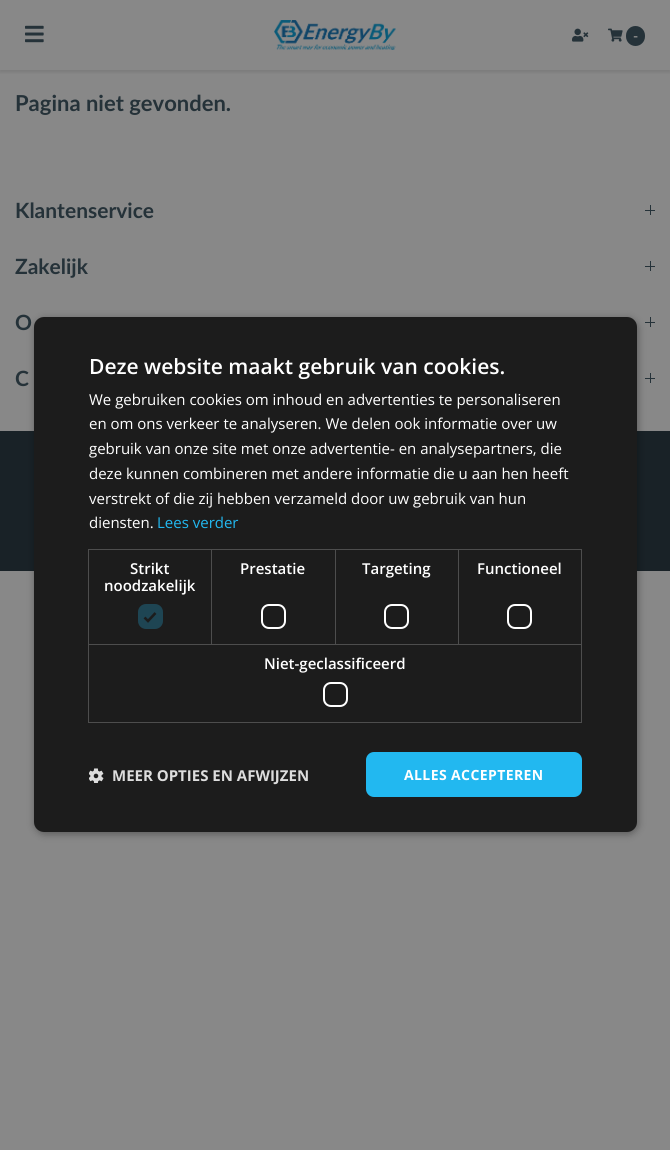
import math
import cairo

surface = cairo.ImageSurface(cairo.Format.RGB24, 670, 1150)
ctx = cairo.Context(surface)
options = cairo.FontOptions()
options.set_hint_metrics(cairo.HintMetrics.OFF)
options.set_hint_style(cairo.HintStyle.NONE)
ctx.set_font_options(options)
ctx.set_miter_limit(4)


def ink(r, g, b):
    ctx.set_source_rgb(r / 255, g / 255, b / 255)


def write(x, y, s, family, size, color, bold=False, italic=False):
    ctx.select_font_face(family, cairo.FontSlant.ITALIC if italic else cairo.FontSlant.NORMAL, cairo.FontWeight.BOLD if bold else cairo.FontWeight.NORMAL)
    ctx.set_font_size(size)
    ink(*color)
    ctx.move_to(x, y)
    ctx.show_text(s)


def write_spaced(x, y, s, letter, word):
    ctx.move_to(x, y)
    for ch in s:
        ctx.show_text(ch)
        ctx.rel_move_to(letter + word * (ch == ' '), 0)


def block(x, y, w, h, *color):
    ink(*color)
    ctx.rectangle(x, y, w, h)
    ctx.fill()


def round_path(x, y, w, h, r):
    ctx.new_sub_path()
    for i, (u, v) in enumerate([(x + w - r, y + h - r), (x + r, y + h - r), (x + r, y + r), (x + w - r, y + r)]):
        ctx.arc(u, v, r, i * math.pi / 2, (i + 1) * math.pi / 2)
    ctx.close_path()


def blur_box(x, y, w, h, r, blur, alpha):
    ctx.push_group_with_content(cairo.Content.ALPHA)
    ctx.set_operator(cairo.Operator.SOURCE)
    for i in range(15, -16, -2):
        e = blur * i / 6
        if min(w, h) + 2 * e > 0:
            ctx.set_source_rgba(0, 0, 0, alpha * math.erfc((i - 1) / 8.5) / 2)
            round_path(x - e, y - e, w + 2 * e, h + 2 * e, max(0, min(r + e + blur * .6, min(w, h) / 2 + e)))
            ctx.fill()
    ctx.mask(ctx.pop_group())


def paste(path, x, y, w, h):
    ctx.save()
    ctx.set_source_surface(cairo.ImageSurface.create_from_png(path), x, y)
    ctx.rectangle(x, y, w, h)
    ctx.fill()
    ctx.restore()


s1 = dict(family="Lato", size=14, color=(136, 136, 136), bold=True)
s2 = dict(family="Lato", size=22, color=(37, 50, 57), bold=True)
s3 = dict(family="Lato", size=21, color=(37, 50, 57), bold=True)
s4 = dict(family="Open Sans SemiBold", size=21, color=(255, 255, 255))
s5 = dict(family="Open Sans", size=15, color=(255, 255, 255))
s6 = dict(family="Open Sans", size=15, color=(34, 184, 240))
s7 = dict(family="Open Sans SemiBold", size=15, color=(255, 255, 255))
s8 = dict(family="Open Sans", size=15, color=(221, 221, 221), bold=True)

ink(136, 136, 136)
ctx.paint()
ctx.save()
ctx.rectangle(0, 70, 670, 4)
ctx.clip()
ink(9, 9, 9)
blur_box(0, 2, 670, 70, 0, 2, 0.12)
ctx.restore()
paste("pic1.png", 25, 25, 19, 18)
paste("pic2.png", 274, 20, 122, 30)
paste("pic3.png", 572, 28, 17, 14)
paste("pic4.png", 608, 28, 15, 14)
ink(37, 50, 57)
round_path(626, 26, 19, 20, 9.5)
ctx.fill()
write(633, 41, "-", **s1)
write(15, 111, "Pagina niet gevonden.", **s2)
write(15, 218, "Klantenservice", **s3)
block(645, 210, 10, 1, 37, 50, 57)
block(650, 205, 1, 10, 37, 50, 57)
write(15, 274, "Zakelijk", **s3)
block(645, 266, 10, 1, 37, 50, 57)
block(650, 261, 1, 10, 37, 50, 57)
write(15, 330, "O", **s3)
block(645, 322, 10, 1, 37, 50, 57)
block(650, 317, 1, 10, 37, 50, 57)
write(15, 386, "C", **s3)
block(645, 378, 10, 1, 37, 50, 57)
block(650, 373, 1, 10, 37, 50, 57)
block(0, 431, 670, 140, 25, 34, 39)
ink(0, 0, 0)
blur_box(35, 319, 603, 515, 10, 4, 0.35)
ink(28, 28, 28)
round_path(34, 317, 603, 515, 10)
ctx.fill()
write(89, 374, "Deze website maakt gebruik van cookies.", **s4)
write(89, 405, "We gebruiken cookies om inhoud en advertenties te personaliseren", **s5)
write(89, 429, "en om ons verkeer te analyseren. We delen ook informatie over uw", **s5)
write(89, 454, "gebruik van onze site met onze advertentie- en analysepartners, die", **s5)
write(89, 479, "deze kunnen combineren met andere informatie die u aan hen heeft", **s5)
write(89, 504, "verstrekt of die zij hebben verzameld door uw gebruik van hun", **s5)
write(89, 528, "diensten.", **s5)
write(157, 528, "Lees verder", **s6)
ctx.rectangle(88.5, 549.5, 123, 95)
ink(77, 77, 77)
ctx.set_line_width(1)
ctx.stroke()
write(130, 574, "Strikt", **s7)
write(104, 591, "noodzakelijk", **s7)
ink(30, 69, 83)
round_path(138, 604, 25, 25, 8)
ctx.fill()
ctx.new_path()
ctx.move_to(144.5, 617.5)
ctx.line_to(148, 621)
ctx.line_to(155.5, 613)
ink(28, 28, 28)
ctx.set_line_width(2.6)
ctx.stroke()
ctx.rectangle(211.5, 549.5, 124, 95)
ink(77, 77, 77)
ctx.set_line_width(1)
ctx.stroke()
write(240, 574, "Prestatie", **s7)
round_path(262, 605, 23, 23, 7)
ctx.set_line_width(2)
ctx.stroke()
ctx.rectangle(335.5, 549.5, 123, 95)
ink(77, 77, 77)
ctx.set_line_width(1)
ctx.stroke()
write(362, 574, "Targeting", **s7)
round_path(385, 605, 23, 23, 7)
ctx.set_line_width(2)
ctx.stroke()
ctx.rectangle(458.5, 549.5, 123, 95)
ink(77, 77, 77)
ctx.set_line_width(1)
ctx.stroke()
write(477, 574, "Functioneel", **s7)
round_path(508, 605, 23, 23, 7)
ctx.set_line_width(2)
ctx.stroke()
ctx.rectangle(88.5, 644.5, 493, 78)
ink(77, 77, 77)
ctx.set_line_width(1)
ctx.stroke()
write(264, 669, "Niet-geclassificeerd", **s7)
round_path(324, 683, 23, 23, 7)
ctx.set_line_width(2)
ctx.stroke()
paste("pic5.png", 89, 768, 15, 15)
write(112, 781, "MEER OPTIES EN AFWIJZEN", **s8)
ink(34, 184, 240)
round_path(366, 752, 216, 45, 8)
ctx.fill()
ctx.set_font_size(14)
ink(255, 255, 255)
write_spaced(404, 780, "ALLES ACCEPTEREN", 0.4, 0)
surface.write_to_png("screenshot.png")
